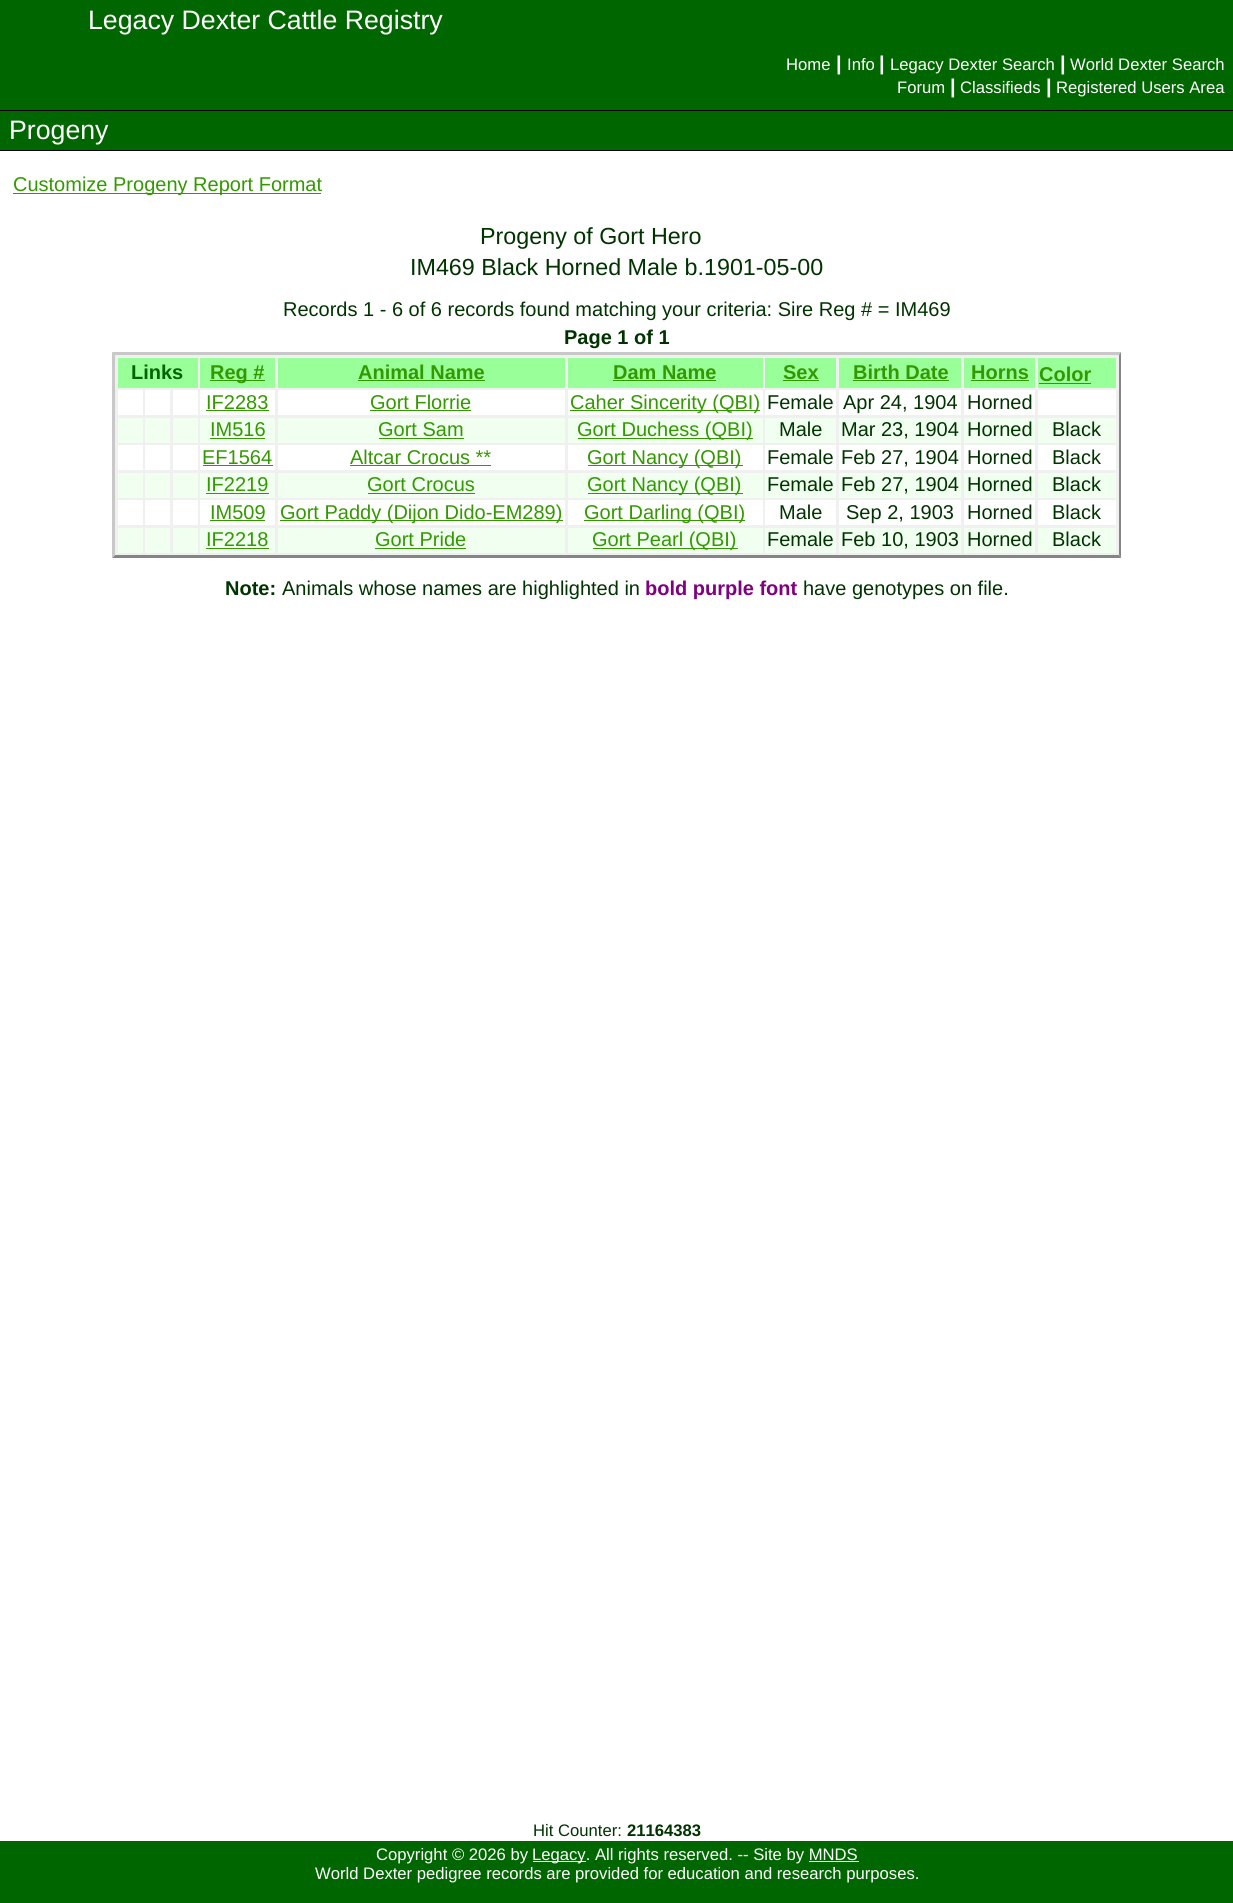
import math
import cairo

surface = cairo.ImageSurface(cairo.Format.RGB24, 1233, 1903)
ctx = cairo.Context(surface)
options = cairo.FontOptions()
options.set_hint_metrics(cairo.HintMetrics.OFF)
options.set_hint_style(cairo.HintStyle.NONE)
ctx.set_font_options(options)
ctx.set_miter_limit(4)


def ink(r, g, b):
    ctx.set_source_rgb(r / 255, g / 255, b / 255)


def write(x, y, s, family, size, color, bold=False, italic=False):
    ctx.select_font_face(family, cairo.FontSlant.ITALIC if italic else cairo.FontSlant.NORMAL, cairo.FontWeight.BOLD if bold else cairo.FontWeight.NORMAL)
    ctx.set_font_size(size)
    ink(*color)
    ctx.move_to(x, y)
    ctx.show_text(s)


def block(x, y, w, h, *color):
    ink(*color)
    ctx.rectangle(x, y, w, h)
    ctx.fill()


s1 = dict(family="Liberation Sans", size=26.7, color=(255, 255, 255))
s2 = dict(family="Liberation Sans", size=16.65, color=(255, 255, 255))
s3 = dict(family="Liberation Sans", size=20, color=(255, 255, 255), bold=True)
s4 = dict(family="Liberation Sans", size=20, color=(51, 153, 0))
s5 = dict(family="Liberation Sans", size=23.3, color=(0, 51, 0))
s6 = dict(family="Liberation Sans", size=20, color=(0, 51, 0))
s7 = dict(family="Liberation Sans", size=20, color=(0, 51, 0), bold=True)
s8 = dict(family="Liberation Sans", size=20, color=(0, 102, 0), bold=True)
s9 = dict(family="Liberation Sans", size=20, color=(51, 153, 0), bold=True)
s10 = dict(family="Liberation Sans", size=20, color=(128, 0, 128), bold=True)
s11 = dict(family="Liberation Sans", size=16.65, color=(0, 51, 0))
s12 = dict(family="Liberation Sans", size=16.65, color=(0, 51, 0), bold=True)

ink(255, 255, 255)
ctx.paint()
block(0, 0, 74, 110, 0, 102, 0)
block(74, 0, 1159, 110, 0, 102, 0)
write(88, 29, "Legacy Dexter Cattle Registry", **s1)
block(0, 110, 1233, 1, 0, 0, 0)
write(786, 70, "Home", **s2)
write(836, 70, "|", **s3)
write(847, 70, "Info", **s2)
write(879, 70, "|", **s3)
write(890, 70, "Legacy Dexter Search", **s2)
write(1060, 70, "|", **s3)
write(1070, 70, "World Dexter Search", **s2)
write(897, 93, "Forum", **s2)
write(950, 93, "|", **s3)
write(960, 93, "Classifieds", **s2)
write(1046, 93, "|", **s3)
write(1056, 93, "Registered Users Area", **s2)
block(0, 111, 1233, 39, 0, 102, 0)
block(0, 150, 1233, 1, 0, 0, 0)
write(9, 139, "Progeny", **s1)
block(13, 193, 308, 1, 51, 153, 0)
write(13, 191, "Customize Progeny Report Format", **s4)
write(480, 244, "Progeny of Gort Hero", **s5)
write(410, 275, "IM469 Black Horned Male b.1901-05-00", **s5)
write(283, 316, "Records 1 - 6 of 6 records found matching your criteria: Sire Reg # = IM469", **s6)
write(564, 344, "Page 1 of 1", **s7)
block(113, 353, 1008, 205, 240, 240, 240)
ink(200, 200, 200)
ctx.new_path()
ctx.move_to(112, 352)
ctx.line_to(1121, 352)
ctx.line_to(1119, 355)
ctx.line_to(115, 355)
ctx.close_path()
ctx.fill()
ink(133, 133, 133)
ctx.new_path()
ctx.move_to(1121, 352)
ctx.line_to(1121, 558)
ctx.line_to(1119, 555)
ctx.line_to(1119, 355)
ctx.close_path()
ctx.fill()
ctx.new_path()
ctx.move_to(1121, 558)
ctx.line_to(112, 558)
ctx.line_to(115, 555)
ctx.line_to(1119, 555)
ctx.close_path()
ctx.fill()
ink(200, 200, 200)
ctx.new_path()
ctx.move_to(112, 558)
ctx.line_to(112, 352)
ctx.line_to(115, 355)
ctx.line_to(115, 555)
ctx.close_path()
ctx.fill()
block(118, 358, 80, 30, 153, 255, 153)
write(131, 379, "Links", **s8)
block(200, 358, 75, 30, 153, 255, 153)
block(210, 380, 55, 1, 51, 153, 0)
write(210, 379, "Reg #", **s9)
block(278, 358, 287, 30, 153, 255, 153)
write(358, 379, "Animal Name", **s9)
block(358, 380, 127, 1, 51, 153, 0)
block(568, 358, 195, 30, 153, 255, 153)
write(613, 379, "Dam Name", **s9)
block(613, 380, 103, 1, 51, 153, 0)
block(765, 358, 71, 30, 153, 255, 153)
write(783, 379, "Sex", **s9)
block(783, 380, 36, 1, 51, 153, 0)
block(839, 358, 122, 30, 153, 255, 153)
write(853, 379, "Birth Date", **s9)
block(853, 380, 96, 1, 51, 153, 0)
block(964, 358, 71, 30, 153, 255, 153)
write(971, 379, "Horns", **s9)
block(971, 380, 58, 1, 51, 153, 0)
block(1038, 358, 78, 30, 153, 255, 153)
write(1039, 381, "Color", **s9)
block(1039, 383, 52, 1, 51, 153, 0)
block(118, 390, 25, 25, 255, 255, 255)
block(145, 390, 25, 25, 255, 255, 255)
block(173, 390, 25, 25, 255, 255, 255)
block(200, 390, 75, 25, 255, 255, 255)
write(206, 409, "IF2283", **s4)
block(206, 410, 63, 1, 51, 153, 0)
block(278, 390, 287, 25, 255, 255, 255)
write(370, 409, "Gort Florrie", **s4)
block(370, 410, 101, 1, 51, 153, 0)
block(568, 390, 195, 25, 255, 255, 255)
block(570, 410, 190, 1, 51, 153, 0)
write(570, 409, "Caher Sincerity (QBI)", **s4)
block(765, 390, 71, 25, 255, 255, 255)
write(767, 409, "Female", **s6)
block(839, 390, 122, 25, 255, 255, 255)
write(843, 409, "Apr 24, 1904", **s6)
block(964, 390, 71, 25, 255, 255, 255)
write(967, 409, "Horned", **s6)
block(1038, 390, 78, 25, 255, 255, 255)
block(118, 418, 25, 25, 240, 255, 240)
block(145, 418, 25, 25, 240, 255, 240)
block(173, 418, 25, 25, 240, 255, 240)
block(200, 418, 75, 25, 240, 255, 240)
write(210, 436, "IM516", **s4)
block(210, 438, 55, 1, 51, 153, 0)
block(278, 418, 287, 25, 240, 255, 240)
write(378, 436, "Gort Sam", **s4)
block(379, 438, 85, 1, 51, 153, 0)
block(568, 418, 195, 25, 240, 255, 240)
block(578, 438, 175, 1, 51, 153, 0)
write(577, 436, "Gort Duchess (QBI)", **s4)
block(765, 418, 71, 25, 240, 255, 240)
write(779, 436, "Male", **s6)
block(839, 418, 122, 25, 240, 255, 240)
write(841, 436, "Mar 23, 1904", **s6)
block(964, 418, 71, 25, 240, 255, 240)
write(967, 436, "Horned", **s6)
block(1038, 418, 78, 25, 240, 255, 240)
write(1052, 436, "Black", **s6)
block(118, 445, 25, 25, 255, 255, 255)
block(145, 445, 25, 25, 255, 255, 255)
block(173, 445, 25, 25, 255, 255, 255)
block(200, 445, 75, 25, 255, 255, 255)
write(202, 464, "EF1564", **s4)
block(203, 465, 70, 1, 51, 153, 0)
block(278, 445, 287, 25, 255, 255, 255)
write(350, 464, "Altcar Crocus **", **s4)
block(350, 465, 141, 1, 51, 153, 0)
block(568, 445, 195, 25, 255, 255, 255)
block(588, 465, 155, 1, 51, 153, 0)
write(587, 464, "Gort Nancy (QBI)", **s4)
block(765, 445, 71, 25, 255, 255, 255)
write(767, 464, "Female", **s6)
block(839, 445, 122, 25, 255, 255, 255)
write(841, 464, "Feb 27, 1904", **s6)
block(964, 445, 71, 25, 255, 255, 255)
write(967, 464, "Horned", **s6)
block(1038, 445, 78, 25, 255, 255, 255)
write(1052, 464, "Black", **s6)
block(118, 473, 25, 25, 240, 255, 240)
block(145, 473, 25, 25, 240, 255, 240)
block(173, 473, 25, 25, 240, 255, 240)
block(200, 473, 75, 25, 240, 255, 240)
write(206, 491, "IF2219", **s4)
block(206, 493, 63, 1, 51, 153, 0)
block(278, 473, 287, 25, 240, 255, 240)
write(367, 491, "Gort Crocus", **s4)
block(368, 493, 107, 1, 51, 153, 0)
block(568, 473, 195, 25, 240, 255, 240)
block(588, 493, 155, 1, 51, 153, 0)
write(587, 491, "Gort Nancy (QBI)", **s4)
block(765, 473, 71, 25, 240, 255, 240)
write(767, 491, "Female", **s6)
block(839, 473, 122, 25, 240, 255, 240)
write(841, 491, "Feb 27, 1904", **s6)
block(964, 473, 71, 25, 240, 255, 240)
write(967, 491, "Horned", **s6)
block(1038, 473, 78, 25, 240, 255, 240)
write(1052, 491, "Black", **s6)
block(118, 500, 25, 25, 255, 255, 255)
block(145, 500, 25, 25, 255, 255, 255)
block(173, 500, 25, 25, 255, 255, 255)
block(200, 500, 75, 25, 255, 255, 255)
write(210, 519, "IM509", **s4)
block(210, 520, 55, 1, 51, 153, 0)
block(278, 500, 287, 25, 255, 255, 255)
block(280, 520, 283, 1, 51, 153, 0)
write(280, 519, "Gort Paddy (Dijon Dido-EM289)", **s4)
block(568, 500, 195, 25, 255, 255, 255)
block(584, 520, 161, 1, 51, 153, 0)
write(584, 519, "Gort Darling (QBI)", **s4)
block(765, 500, 71, 25, 255, 255, 255)
write(779, 519, "Male", **s6)
block(839, 500, 122, 25, 255, 255, 255)
write(846, 519, "Sep 2, 1903", **s6)
block(964, 500, 71, 25, 255, 255, 255)
write(967, 519, "Horned", **s6)
block(1038, 500, 78, 25, 255, 255, 255)
write(1052, 519, "Black", **s6)
block(118, 528, 25, 25, 240, 255, 240)
block(145, 528, 25, 25, 240, 255, 240)
block(173, 528, 25, 25, 240, 255, 240)
block(200, 528, 75, 25, 240, 255, 240)
write(206, 546, "IF2218", **s4)
block(206, 548, 63, 1, 51, 153, 0)
block(278, 528, 287, 25, 240, 255, 240)
write(375, 546, "Gort Pride", **s4)
block(375, 548, 91, 1, 51, 153, 0)
block(568, 528, 195, 25, 240, 255, 240)
block(593, 548, 145, 1, 51, 153, 0)
write(592, 546, "Gort Pearl (QBI)", **s4)
block(765, 528, 71, 25, 240, 255, 240)
write(767, 546, "Female", **s6)
block(839, 528, 122, 25, 240, 255, 240)
write(841, 546, "Feb 10, 1903", **s6)
block(964, 528, 71, 25, 240, 255, 240)
write(967, 546, "Horned", **s6)
block(1038, 528, 78, 25, 240, 255, 240)
write(1052, 546, "Black", **s6)
write(225, 595, "Note:", **s7)
write(282, 595, "Animals whose names are highlighted in", **s6)
write(645, 595, "bold purple font", **s10)
write(803, 595, "have genotypes on file.", **s6)
write(533, 1836, "Hit Counter:", **s11)
write(627, 1836, "21164383", **s12)
block(0, 1841, 1233, 62, 0, 102, 0)
write(376, 1860, "Copyright © 2026 by", **s2)
block(533, 1861, 53, 1, 255, 255, 255)
write(532, 1860, "Legacy. All rights reserved. -- Site by MNDS", **s2)
write(315, 1879, "World Dexter pedigree records are provided for education and research purposes.", **s2)
block(809, 1861, 50, 1, 255, 255, 255)
surface.write_to_png("screenshot.png")
